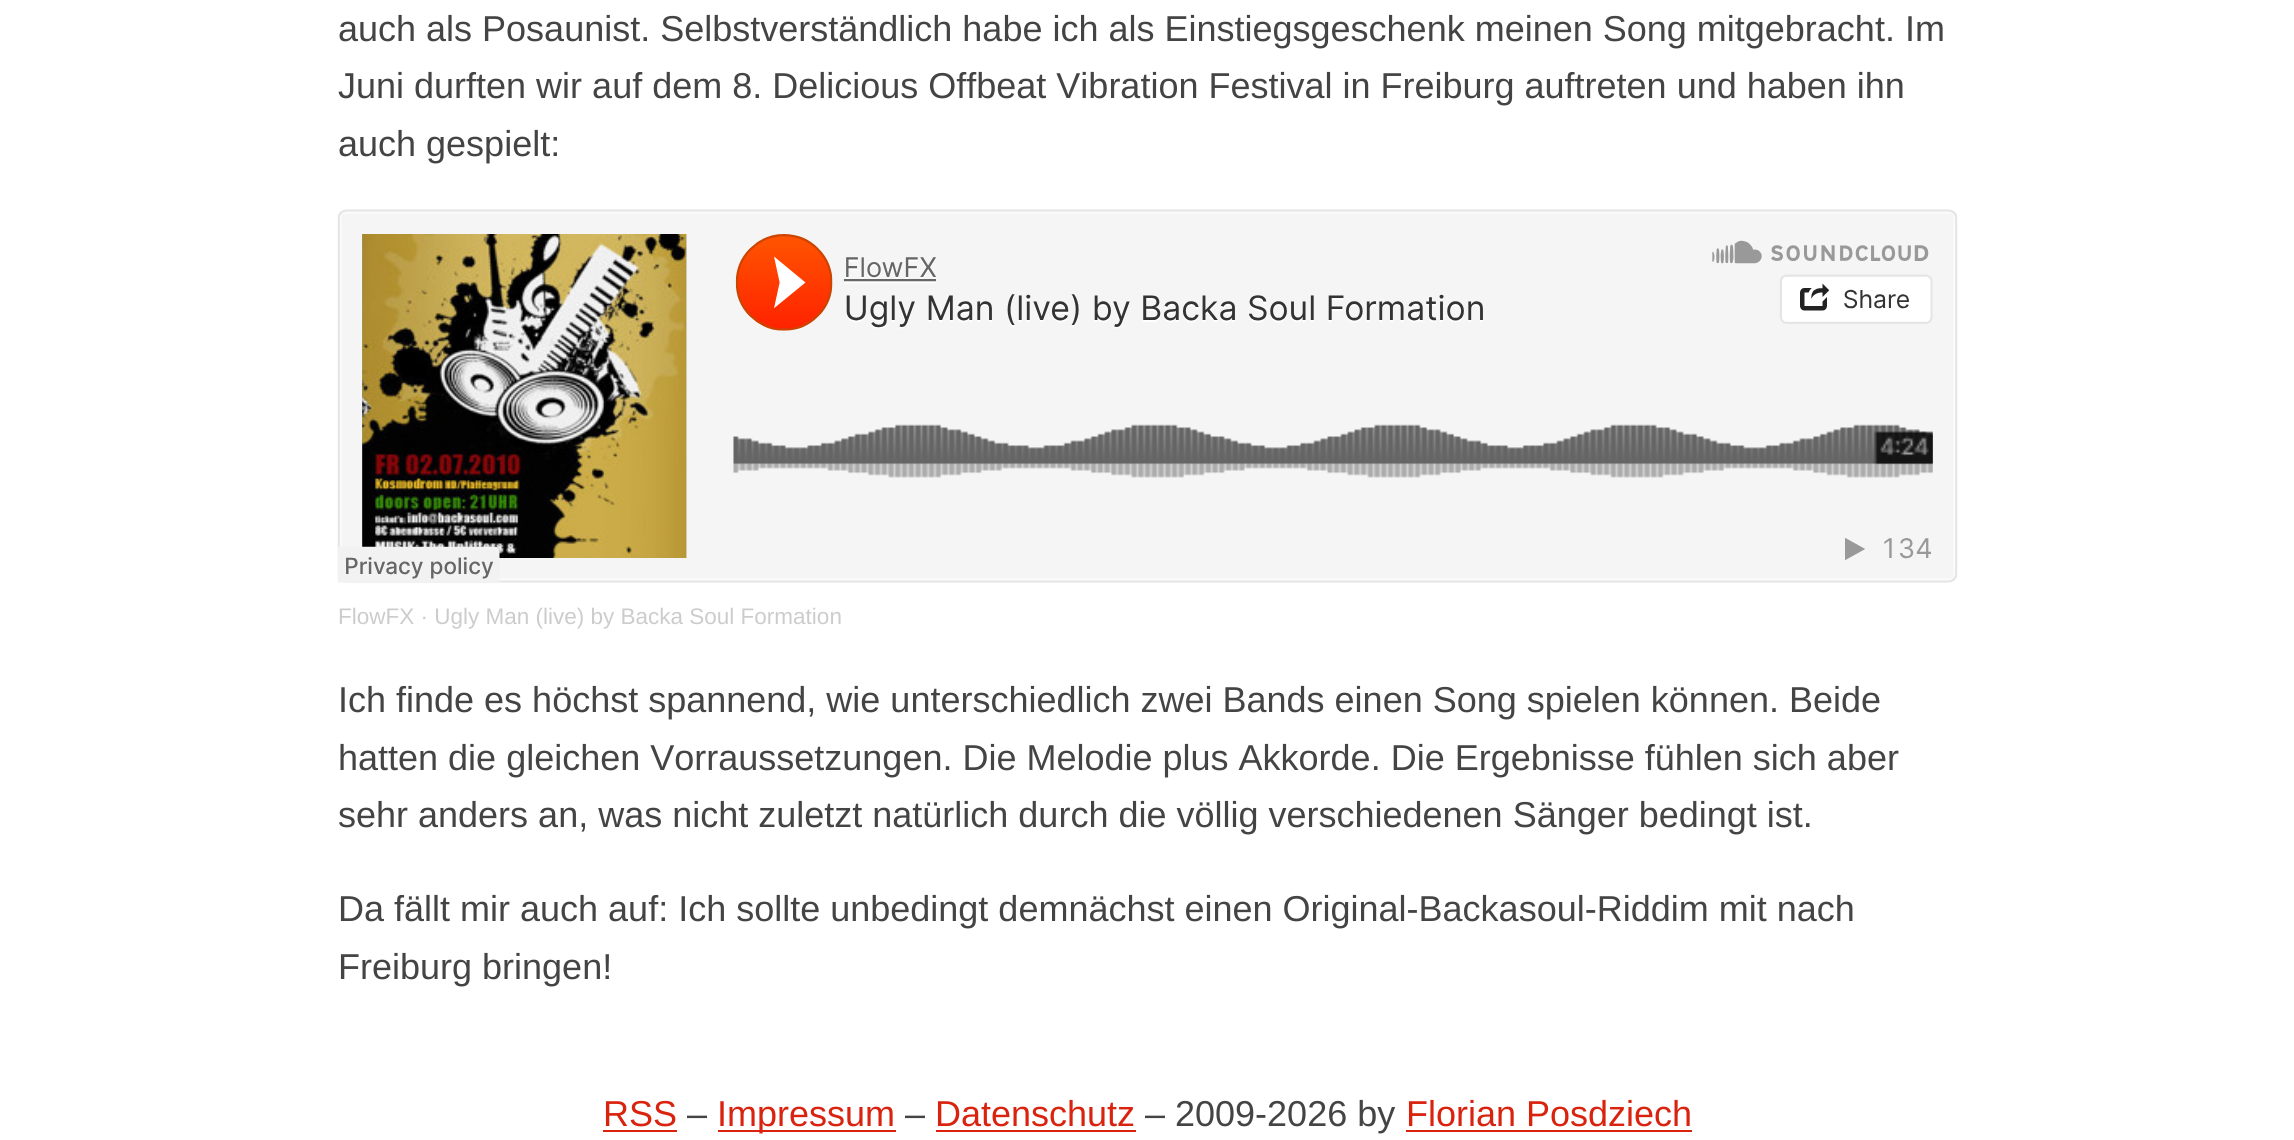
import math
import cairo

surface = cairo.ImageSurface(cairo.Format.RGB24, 2294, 1140)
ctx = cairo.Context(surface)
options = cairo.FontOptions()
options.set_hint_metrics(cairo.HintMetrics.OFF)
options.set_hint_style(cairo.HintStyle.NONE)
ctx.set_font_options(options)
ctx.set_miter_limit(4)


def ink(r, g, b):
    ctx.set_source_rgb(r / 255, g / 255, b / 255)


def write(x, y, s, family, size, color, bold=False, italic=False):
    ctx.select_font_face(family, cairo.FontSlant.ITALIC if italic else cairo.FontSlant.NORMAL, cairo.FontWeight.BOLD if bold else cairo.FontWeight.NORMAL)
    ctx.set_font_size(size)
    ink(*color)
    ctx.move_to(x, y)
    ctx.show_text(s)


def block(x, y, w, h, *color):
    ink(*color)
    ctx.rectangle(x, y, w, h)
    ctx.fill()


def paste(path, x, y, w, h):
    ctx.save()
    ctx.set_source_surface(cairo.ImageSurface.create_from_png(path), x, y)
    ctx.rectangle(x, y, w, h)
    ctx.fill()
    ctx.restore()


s1 = dict(family="Liberation Sans", size=36, color=(68, 68, 68))
s2 = dict(family="Liberation Sans", size=22.5, color=(204, 204, 204))
s3 = dict(family="Liberation Sans", size=36, color=(217, 35, 15))

ink(255, 255, 255)
ctx.paint()
write(338, 41, "auch als Posaunist. Selbstverständlich habe ich als Einstiegsgeschenk meinen Song mitgebracht. Im", **s1)
write(338, 98, "Juni durften wir auf dem 8. Delicious Offbeat Vibration Festival in Freiburg auftreten und haben ihn", **s1)
write(338, 156, "auch gespielt:", **s1)
paste("pic1.png", 337, 209, 1621, 374)
write(338, 624, "FlowFX · Ugly Man (live) by Backa Soul Formation", **s2)
write(338, 712, "Ich finde es höchst spannend, wie unterschiedlich zwei Bands einen Song spielen können. Beide", **s1)
write(338, 770, "hatten die gleichen Vorraussetzungen. Die Melodie plus Akkorde. Die Ergebnisse fühlen sich aber", **s1)
write(338, 827, "sehr anders an, was nicht zuletzt natürlich durch die völlig verschiedenen Sänger bedingt ist.", **s1)
write(338, 921, "Da fällt mir auch auf: Ich sollte unbedingt demnächst einen Original-Backasoul-Riddim mit nach", **s1)
write(338, 979, "Freiburg bringen!", **s1)
write(603, 1126, "RSS", **s3)
block(603, 1130, 74, 2, 217, 35, 15)
write(687, 1126, "–", **s1)
block(718, 1130, 178, 2, 217, 35, 15)
write(717, 1126, "Impressum", **s3)
write(905, 1126, "–", **s1)
write(935, 1126, "Datenschutz", **s3)
block(936, 1130, 200, 2, 217, 35, 15)
write(1145, 1126, "– 2009-2026 by", **s1)
write(1406, 1126, "Florian Posdziech", **s3)
block(1406, 1130, 286, 2, 217, 35, 15)
surface.write_to_png("screenshot.png")
